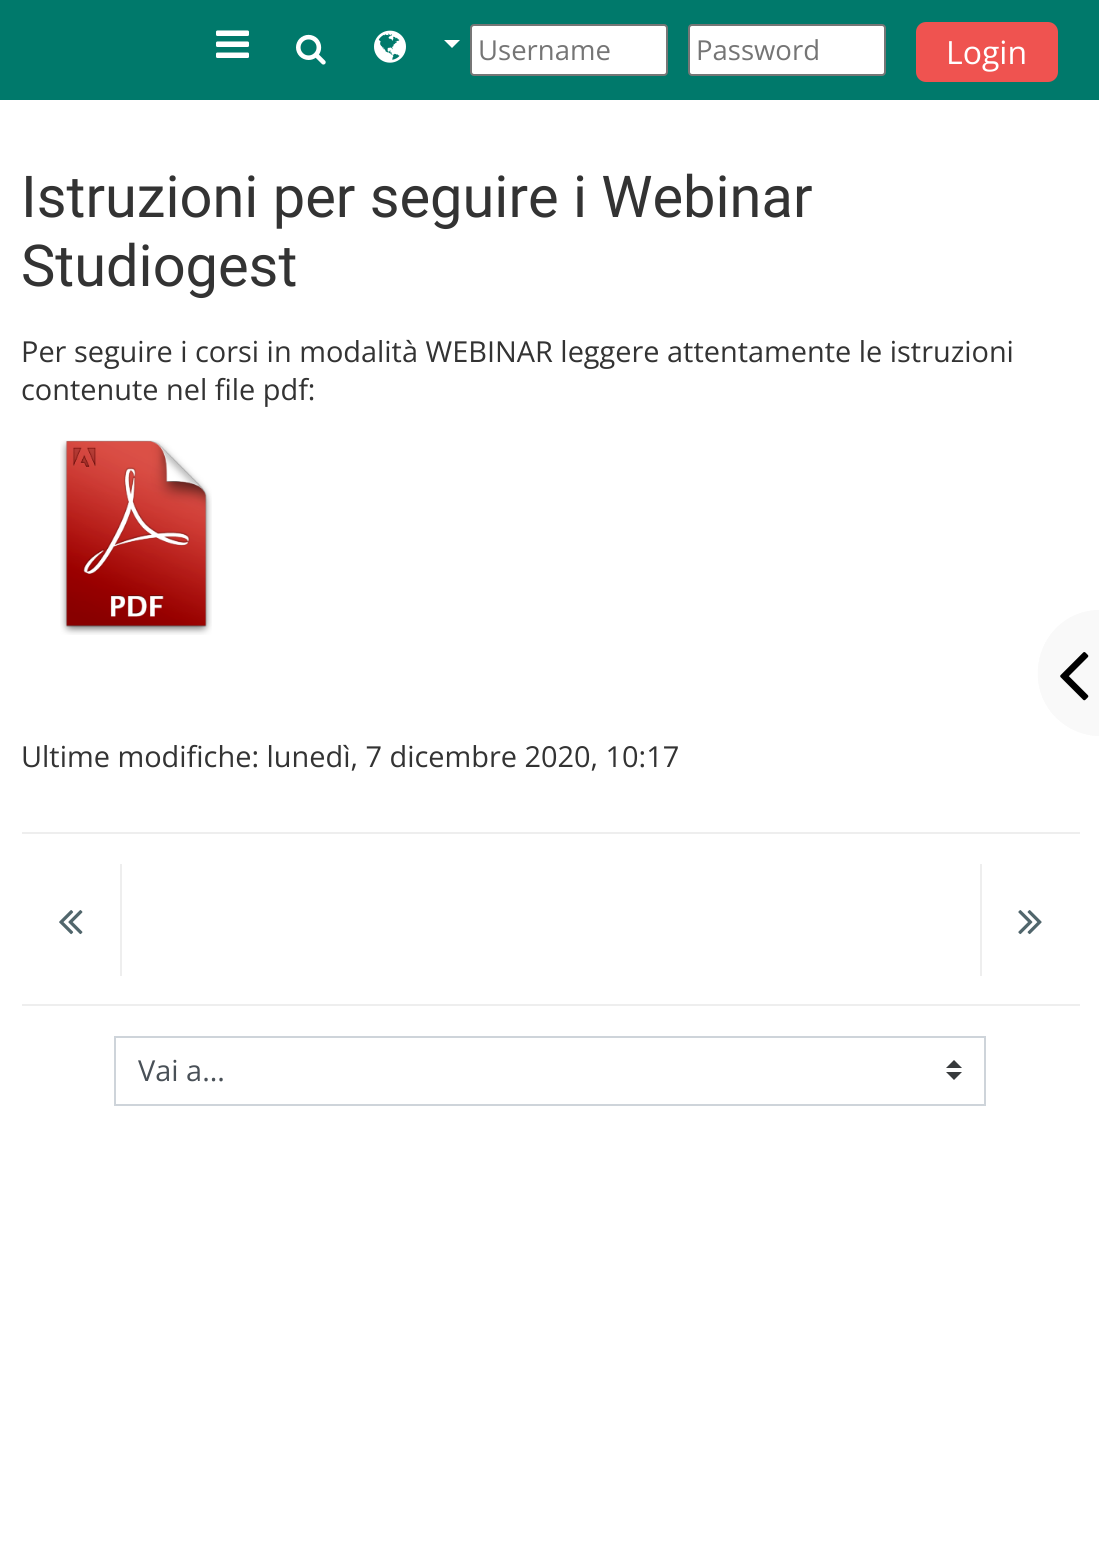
import math
import cairo

surface = cairo.ImageSurface(cairo.Format.RGB24, 1099, 1548)
ctx = cairo.Context(surface)
options = cairo.FontOptions()
options.set_hint_metrics(cairo.HintMetrics.OFF)
options.set_hint_style(cairo.HintStyle.NONE)
ctx.set_font_options(options)
ctx.set_miter_limit(4)


def ink(r, g, b):
    ctx.set_source_rgb(r / 255, g / 255, b / 255)


def write(x, y, s, family, size, color, bold=False, italic=False):
    ctx.select_font_face(family, cairo.FontSlant.ITALIC if italic else cairo.FontSlant.NORMAL, cairo.FontWeight.BOLD if bold else cairo.FontWeight.NORMAL)
    ctx.set_font_size(size)
    ink(*color)
    ctx.move_to(x, y)
    ctx.show_text(s)


def block(x, y, w, h, *color):
    ink(*color)
    ctx.rectangle(x, y, w, h)
    ctx.fill()


def round_path(x, y, w, h, r):
    ctx.new_sub_path()
    for i, (u, v) in enumerate([(x + w - r, y + h - r), (x + r, y + h - r), (x + r, y + r), (x + w - r, y + r)]):
        ctx.arc(u, v, r, i * math.pi / 2, (i + 1) * math.pi / 2)
    ctx.close_path()


def paste(path, x, y, w, h):
    ctx.save()
    ctx.set_source_surface(cairo.ImageSurface.create_from_png(path), x, y)
    ctx.rectangle(x, y, w, h)
    ctx.fill()
    ctx.restore()


s1 = dict(family="Open Sans", size=27.5, color=(117, 117, 117))
s2 = dict(family="Open Sans", size=32, color=(255, 255, 255))
s3 = dict(family="Roboto", size=57.75, color=(51, 51, 51))
s4 = dict(family="Open Sans", size=28.9, color=(51, 51, 51))
s5 = dict(family="Open Sans", size=28.9, color=(73, 80, 87))

ink(255, 255, 255)
ctx.paint()
block(0, 0, 1099, 100, 0, 121, 107)
paste("pic1.png", 216, 30, 33, 28)
paste("pic2.png", 296, 34, 30, 31)
paste("pic3.png", 374, 30, 32, 33)
ink(255, 255, 255)
ctx.new_path()
ctx.move_to(444, 40)
ctx.line_to(460, 40)
ctx.line_to(452, 48)
ctx.close_path()
ctx.fill()
round_path(471, 25, 196, 50, 3)
ctx.fill_preserve()
ink(118, 118, 118)
ctx.stroke()
write(478, 60, "Username", **s1)
ink(255, 255, 255)
round_path(689, 25, 196, 50, 3)
ctx.fill_preserve()
ink(118, 118, 118)
ctx.stroke()
write(696, 60, "Password", **s1)
ink(239, 83, 80)
round_path(916, 22, 142, 60, 10)
ctx.fill()
write(946, 64, "Login", **s2)
write(21, 217, "Istruzioni per seguire i Webinar", **s3)
write(21, 286, "Studiogest", **s3)
write(21, 362, "Per seguire i corsi in modalità WEBINAR leggere attentamente le istruzioni", **s4)
write(21, 400, "contenute nel file pdf:", **s4)
paste("pic4.png", 60, 440, 152, 195)
write(21, 767, "Ultime modifiche: lunedì, 7 dicembre 2020, 10:17", **s4)
block(22, 832, 1058, 2, 238, 238, 238)
block(22, 1004, 1058, 2, 238, 238, 238)
block(120, 864, 2, 112, 238, 238, 238)
paste("pic5.png", 59, 910, 24, 25)
block(980, 864, 2, 112, 238, 238, 238)
paste("pic6.png", 1018, 910, 24, 25)
ink(55, 58, 60)
ctx.new_path()
ctx.move_to(954, 1060)
ctx.line_to(946, 1068)
ctx.line_to(962, 1068)
ctx.close_path()
ctx.move_to(954, 1080)
ctx.line_to(946, 1072)
ctx.line_to(962, 1072)
ctx.close_path()
ctx.fill()
ctx.rectangle(115, 1037, 870, 68)
ink(206, 212, 218)
ctx.stroke()
write(138, 1081, "Vai a...", **s5)
ink(249, 249, 249)
ctx.new_path()
ctx.move_to(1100, 610)
ctx.line_to(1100, 736)
ctx.curve_to(1066, 736, 1038, 708, 1038, 674)
ctx.line_to(1038, 672)
ctx.curve_to(1038, 638, 1066, 610, 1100, 610)
ctx.close_path()
ctx.fill()
ctx.set_fill_rule(cairo.FillRule.EVEN_ODD)
ctx.new_path()
ctx.move_to(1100, 610)
ctx.line_to(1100, 736)
ctx.curve_to(1088, 736, 1076, 732, 1065, 725)
ctx.curve_to(1015, 691, 1038, 610, 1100, 610)
ctx.close_path()
ctx.move_to(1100, 618)
ctx.line_to(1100, 728)
ctx.curve_to(1046, 728, 1026, 657, 1070, 627)
ctx.curve_to(1079, 621, 1089, 618, 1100, 618)
ctx.close_path()
ctx.fill()
paste("pic7.png", 1060, 652, 29, 49)
surface.write_to_png("screenshot.png")
